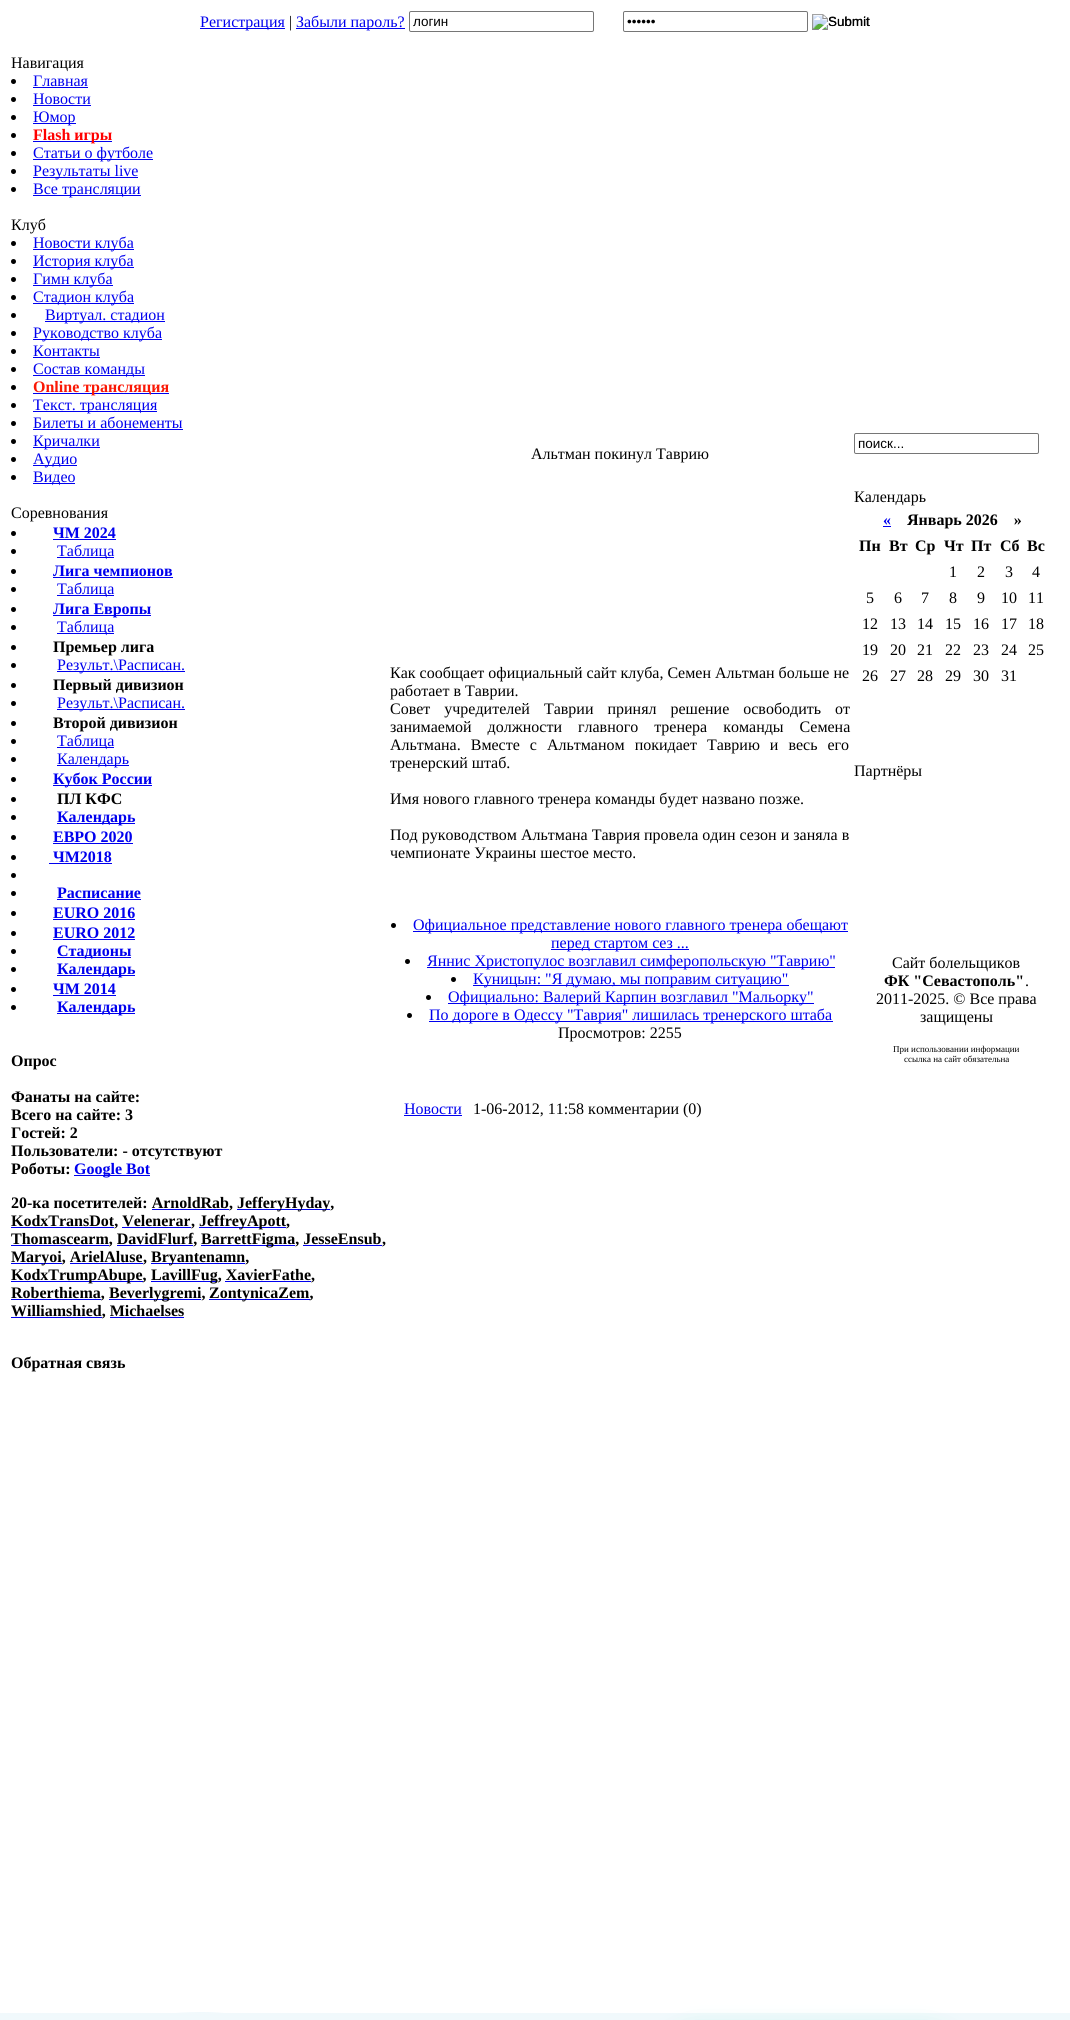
import math
import cairo

surface = cairo.ImageSurface(cairo.Format.RGB24, 1070, 2020)
ctx = cairo.Context(surface)
options = cairo.FontOptions()
options.set_hint_metrics(cairo.HintMetrics.OFF)
options.set_hint_style(cairo.HintStyle.NONE)
ctx.set_font_options(options)
ctx.set_miter_limit(4)


def ink(r, g, b):
    ctx.set_source_rgb(r / 255, g / 255, b / 255)


def write(x, y, s, family, size, color, bold=False, italic=False):
    ctx.select_font_face(family, cairo.FontSlant.ITALIC if italic else cairo.FontSlant.NORMAL, cairo.FontWeight.BOLD if bold else cairo.FontWeight.NORMAL)
    ctx.set_font_size(size)
    ink(*color)
    ctx.move_to(x, y)
    ctx.show_text(s)


def write_spaced(x, y, s, letter, word):
    ctx.move_to(x, y)
    for ch in s:
        ctx.show_text(ch)
        ctx.rel_move_to(letter + word * (ch == ' '), 0)


def block(x, y, w, h, *color):
    ink(*color)
    ctx.rectangle(x, y, w, h)
    ctx.fill()


def round_path(x, y, w, h, r):
    ctx.new_sub_path()
    for i, (u, v) in enumerate([(x + w - r, y + h - r), (x + r, y + h - r), (x + r, y + r), (x + w - r, y + r)]):
        ctx.arc(u, v, r, i * math.pi / 2, (i + 1) * math.pi / 2)
    ctx.close_path()


def blur_box(x, y, w, h, r, blur, alpha):
    ctx.push_group_with_content(cairo.Content.ALPHA)
    ctx.set_operator(cairo.Operator.SOURCE)
    for i in range(15, -16, -2):
        e = blur * i / 6
        if min(w, h) + 2 * e > 0:
            ctx.set_source_rgba(0, 0, 0, alpha * math.erfc((i - 1) / 8.5) / 2)
            round_path(x - e, y - e, w + 2 * e, h + 2 * e, max(0, min(r + e + blur * .6, min(w, h) / 2 + e)))
            ctx.fill()
    ctx.mask(ctx.pop_group())


def paste(path, x, y, w, h):
    ctx.save()
    ctx.set_source_surface(cairo.ImageSurface.create_from_png(path), x, y)
    ctx.rectangle(x, y, w, h)
    ctx.fill()
    ctx.restore()


s1 = dict(family="Liberation Serif", size=16, color=(0, 0, 238))
s2 = dict(family="Liberation Serif", size=16, color=(0, 0, 0))
s3 = dict(family="Liberation Sans", size=13.5, color=(0, 0, 0))
s4 = dict(family="Liberation Serif", size=16, color=(255, 0, 0), bold=True)
s5 = dict(family="Liberation Serif", size=16, color=(250, 23, 4), bold=True)
s6 = dict(family="Liberation Serif", size=16, color=(0, 0, 238), bold=True)
s7 = dict(family="Liberation Serif", size=16, color=(0, 0, 0), bold=True)
s8 = dict(family="Liberation Serif", size=9, color=(0, 0, 0))

ink(255, 255, 255)
ctx.paint()
block(200, 28, 85, 1, 0, 0, 238)
write(200, 27, "Регистрация", **s1)
write(289, 27, "|", **s2)
block(296, 28, 109, 1, 0, 0, 238)
write(296, 27, "Забыли пароль?", **s1)
round_path(409.5, 11.5, 184, 20, 1.5)
ink(118, 118, 118)
ctx.set_line_width(1)
ctx.stroke()
write(413, 26, "логин", **s3)
round_path(623.5, 11.5, 184, 20, 1.5)
ink(118, 118, 118)
ctx.stroke()
write(627, 26, "••••••", **s3)
paste("pic1.png", 812, 14, 58, 16)
write(828, 26, "Submit", **s3)
write(11, 68, "Навигация", **s2)
ctx.new_path()
ctx.arc(13.5, 81.5, 2.5, 0, 2 * math.pi)
ctx.fill()
write(33, 86, "Главная", **s1)
block(33, 87, 55, 1, 0, 0, 238)
ink(0, 0, 0)
ctx.new_path()
ctx.arc(13.5, 99.5, 2.5, 0, 2 * math.pi)
ctx.fill()
write(33, 104, "Новости", **s1)
block(33, 105, 58, 1, 0, 0, 238)
ink(0, 0, 0)
ctx.new_path()
ctx.arc(13.5, 117.5, 2.5, 0, 2 * math.pi)
ctx.fill()
block(33, 123, 43, 1, 0, 0, 238)
write(33, 122, "Юмор", **s1)
ink(0, 0, 0)
ctx.new_path()
ctx.arc(13.5, 135.5, 2.5, 0, 2 * math.pi)
ctx.fill()
block(33, 141, 79, 1, 0, 0, 238)
write(33, 140, "Flash игры", **s4)
ink(0, 0, 0)
ctx.new_path()
ctx.arc(13.5, 153.5, 2.5, 0, 2 * math.pi)
ctx.fill()
block(33, 159, 120, 1, 0, 0, 238)
write(33, 158, "Статьи о футболе", **s1)
ink(0, 0, 0)
ctx.new_path()
ctx.arc(13.5, 171.5, 2.5, 0, 2 * math.pi)
ctx.fill()
block(33, 177, 105, 1, 0, 0, 238)
write(33, 176, "Результаты live", **s1)
ink(0, 0, 0)
ctx.new_path()
ctx.arc(13.5, 189.5, 2.5, 0, 2 * math.pi)
ctx.fill()
block(33, 195, 108, 1, 0, 0, 238)
write(33, 194, "Все трансляции", **s1)
write(11, 230, "Клуб", **s2)
ctx.new_path()
ctx.arc(13.5, 243.5, 2.5, 0, 2 * math.pi)
ctx.fill()
block(33, 249, 101, 1, 0, 0, 238)
write(33, 248, "Новости клуба", **s1)
ink(0, 0, 0)
ctx.new_path()
ctx.arc(13.5, 261.5, 2.5, 0, 2 * math.pi)
ctx.fill()
block(33, 267, 101, 1, 0, 0, 238)
write(33, 266, "История клуба", **s1)
ink(0, 0, 0)
ctx.new_path()
ctx.arc(13.5, 279.5, 2.5, 0, 2 * math.pi)
ctx.fill()
block(33, 285, 80, 1, 0, 0, 238)
write(33, 284, "Гимн клуба", **s1)
ink(0, 0, 0)
ctx.new_path()
ctx.arc(13.5, 297.5, 2.5, 0, 2 * math.pi)
ctx.fill()
block(33, 303, 101, 1, 0, 0, 238)
write(33, 302, "Стадион клуба", **s1)
ink(0, 0, 0)
ctx.new_path()
ctx.arc(13.5, 315.5, 2.5, 0, 2 * math.pi)
ctx.fill()
block(45, 321, 120, 1, 0, 0, 238)
write(45, 320, "Виртуал. стадион", **s1)
ink(0, 0, 0)
ctx.new_path()
ctx.arc(13.5, 333.5, 2.5, 0, 2 * math.pi)
ctx.fill()
block(33, 339, 129, 1, 0, 0, 238)
write(33, 338, "Руководство клуба", **s1)
ink(0, 0, 0)
ctx.new_path()
ctx.arc(13.5, 351.5, 2.5, 0, 2 * math.pi)
ctx.fill()
write(33, 356, "Контакты", **s1)
block(33, 357, 67, 1, 0, 0, 238)
ink(0, 0, 0)
ctx.new_path()
ctx.arc(13.5, 369.5, 2.5, 0, 2 * math.pi)
ctx.fill()
block(33, 375, 112, 1, 0, 0, 238)
write(33, 374, "Состав команды", **s1)
ink(0, 0, 0)
ctx.new_path()
ctx.arc(13.5, 387.5, 2.5, 0, 2 * math.pi)
ctx.fill()
block(33, 393, 136, 1, 0, 0, 238)
write(33, 392, "Online трансляция", **s5)
ink(0, 0, 0)
ctx.new_path()
ctx.arc(13.5, 405.5, 2.5, 0, 2 * math.pi)
ctx.fill()
block(33, 411, 124, 1, 0, 0, 238)
write(33, 410, "Текст. трансляция", **s1)
ink(0, 0, 0)
ctx.new_path()
ctx.arc(13.5, 423.5, 2.5, 0, 2 * math.pi)
ctx.fill()
write(33, 428, "Билеты и абонементы", **s1)
block(33, 429, 150, 1, 0, 0, 238)
ink(0, 0, 0)
ctx.new_path()
ctx.arc(13.5, 441.5, 2.5, 0, 2 * math.pi)
ctx.fill()
block(33, 447, 67, 1, 0, 0, 238)
write(33, 446, "Кричалки", **s1)
ink(0, 0, 0)
ctx.new_path()
ctx.arc(13.5, 459.5, 2.5, 0, 2 * math.pi)
ctx.fill()
block(33, 465, 44, 1, 0, 0, 238)
write(33, 464, "Аудио", **s1)
ink(0, 0, 0)
ctx.new_path()
ctx.arc(13.5, 477.5, 2.5, 0, 2 * math.pi)
ctx.fill()
block(33, 483, 42, 1, 0, 0, 238)
write(33, 482, "Видео", **s1)
write(11, 518, "Соревнования", **s2)
ctx.new_path()
ctx.arc(13.5, 533.5, 2.5, 0, 2 * math.pi)
ctx.fill()
write(53, 538, "ЧМ 2024", **s6)
block(53, 539, 63, 1, 0, 0, 238)
ink(0, 0, 0)
ctx.new_path()
ctx.arc(13.5, 551.5, 2.5, 0, 2 * math.pi)
ctx.fill()
block(57, 557, 57, 1, 0, 0, 238)
write(57, 556, "Таблица", **s1)
ink(0, 0, 0)
ctx.new_path()
ctx.arc(13.5, 571.5, 2.5, 0, 2 * math.pi)
ctx.fill()
write(53, 576, "Лига чемпионов", **s6)
block(53, 577, 120, 1, 0, 0, 238)
ink(0, 0, 0)
ctx.new_path()
ctx.arc(13.5, 589.5, 2.5, 0, 2 * math.pi)
ctx.fill()
block(57, 595, 57, 1, 0, 0, 238)
write(57, 594, "Таблица", **s1)
ink(0, 0, 0)
ctx.new_path()
ctx.arc(13.5, 609.5, 2.5, 0, 2 * math.pi)
ctx.fill()
block(53, 615, 98, 1, 0, 0, 238)
write(53, 614, "Лига Европы", **s6)
ink(0, 0, 0)
ctx.new_path()
ctx.arc(13.5, 627.5, 2.5, 0, 2 * math.pi)
ctx.fill()
block(57, 633, 57, 1, 0, 0, 238)
write(57, 632, "Таблица", **s1)
ink(0, 0, 0)
ctx.new_path()
ctx.arc(13.5, 647.5, 2.5, 0, 2 * math.pi)
ctx.fill()
write(53, 652, "Премьер лига", **s7)
ctx.new_path()
ctx.arc(13.5, 665.5, 2.5, 0, 2 * math.pi)
ctx.fill()
block(57, 671, 128, 1, 0, 0, 238)
write(57, 670, "Результ.\\Расписан.", **s1)
ink(0, 0, 0)
ctx.new_path()
ctx.arc(13.5, 685.5, 2.5, 0, 2 * math.pi)
ctx.fill()
write(53, 690, "Первый дивизион", **s7)
ctx.new_path()
ctx.arc(13.5, 703.5, 2.5, 0, 2 * math.pi)
ctx.fill()
block(57, 709, 128, 1, 0, 0, 238)
write(57, 708, "Результ.\\Расписан.", **s1)
ink(0, 0, 0)
ctx.new_path()
ctx.arc(13.5, 723.5, 2.5, 0, 2 * math.pi)
ctx.fill()
write(53, 728, "Второй дивизион", **s7)
ctx.new_path()
ctx.arc(13.5, 741.5, 2.5, 0, 2 * math.pi)
ctx.fill()
block(57, 747, 57, 1, 0, 0, 238)
write(57, 746, "Таблица", **s1)
ink(0, 0, 0)
ctx.new_path()
ctx.arc(13.5, 759.5, 2.5, 0, 2 * math.pi)
ctx.fill()
block(57, 765, 72, 1, 0, 0, 238)
write(57, 764, "Календарь", **s1)
ink(0, 0, 0)
ctx.new_path()
ctx.arc(13.5, 779.5, 2.5, 0, 2 * math.pi)
ctx.fill()
block(53, 785, 99, 1, 0, 0, 238)
write(53, 784, "Кубок России", **s6)
ink(0, 0, 0)
ctx.new_path()
ctx.arc(13.5, 799.5, 2.5, 0, 2 * math.pi)
ctx.fill()
write(57, 804, "ПЛ КФС", **s7)
ctx.new_path()
ctx.arc(13.5, 817.5, 2.5, 0, 2 * math.pi)
ctx.fill()
block(57, 823, 78, 1, 0, 0, 238)
write(57, 822, "Календарь", **s6)
ink(0, 0, 0)
ctx.new_path()
ctx.arc(13.5, 837.5, 2.5, 0, 2 * math.pi)
ctx.fill()
write(53, 842, "ЕВРО 2020", **s6)
block(53, 843, 80, 1, 0, 0, 238)
ink(0, 0, 0)
ctx.new_path()
ctx.arc(13.5, 857.5, 2.5, 0, 2 * math.pi)
ctx.fill()
write(53, 862, "ЧМ2018", **s6)
block(49, 863, 63, 1, 0, 0, 238)
ink(0, 0, 0)
ctx.new_path()
ctx.arc(13.5, 875.5, 2.5, 0, 2 * math.pi)
ctx.fill()
ctx.arc(13.5, 893.5, 2.5, 0, 2 * math.pi)
ctx.fill()
write(57, 898, "Расписание", **s6)
block(57, 899, 84, 1, 0, 0, 238)
ink(0, 0, 0)
ctx.new_path()
ctx.arc(13.5, 913.5, 2.5, 0, 2 * math.pi)
ctx.fill()
write(53, 918, "EURO 2016", **s6)
block(53, 919, 82, 1, 0, 0, 238)
ink(0, 0, 0)
ctx.new_path()
ctx.arc(13.5, 933.5, 2.5, 0, 2 * math.pi)
ctx.fill()
write(53, 938, "EURO 2012", **s6)
block(53, 939, 82, 1, 0, 0, 238)
ink(0, 0, 0)
ctx.new_path()
ctx.arc(13.5, 951.5, 2.5, 0, 2 * math.pi)
ctx.fill()
block(57, 957, 74, 1, 0, 0, 238)
write(57, 956, "Стадионы", **s6)
ink(0, 0, 0)
ctx.new_path()
ctx.arc(13.5, 969.5, 2.5, 0, 2 * math.pi)
ctx.fill()
block(57, 975, 78, 1, 0, 0, 238)
write(57, 974, "Календарь", **s6)
ink(0, 0, 0)
ctx.new_path()
ctx.arc(13.5, 989.5, 2.5, 0, 2 * math.pi)
ctx.fill()
write(53, 994, "ЧМ 2014", **s6)
block(53, 995, 63, 1, 0, 0, 238)
ink(0, 0, 0)
ctx.new_path()
ctx.arc(13.5, 1007.5, 2.5, 0, 2 * math.pi)
ctx.fill()
block(57, 1013, 78, 1, 0, 0, 238)
write(57, 1012, "Календарь", **s6)
write(11, 1066, "Опрос", **s7)
write(11, 1102, "Фанаты на сайте:", **s7)
write(11, 1120, "Всего на сайте: 3", **s7)
write(11, 1138, "Гостей: 2", **s7)
write(11, 1156, "Пользователи: - отсутствуют", **s7)
write(11, 1174, "Роботы:", **s7)
block(74, 1175, 76, 1, 0, 0, 238)
write(74, 1174, "Google Bot", **s6)
write(11, 1208, "20-ка посетителей: ArnoldRab,", **s7)
block(237, 1209, 93, 1, 0, 0, 238)
write(237, 1208, "JefferyHyday,", **s7)
block(152, 1209, 77, 1, 0, 0, 238)
block(11, 1227, 103, 1, 0, 0, 238)
write(11, 1226, "KodxTransDot, Velenerar", **s7)
block(122, 1227, 69, 1, 0, 0, 238)
write(191, 1226, ",", **s7)
block(199, 1227, 87, 1, 0, 0, 238)
write(199, 1226, "JeffreyApott,", **s7)
block(11, 1245, 98, 1, 0, 0, 238)
write(11, 1244, "Thomascearm, DavidFlurf,", **s7)
block(201, 1245, 94, 1, 0, 0, 238)
write(201, 1244, "BarrettFigma, JesseEnsub", **s7)
block(303, 1245, 79, 1, 0, 0, 238)
write(382, 1244, ",", **s7)
block(117, 1245, 76, 1, 0, 0, 238)
block(11, 1263, 51, 1, 0, 0, 238)
write(11, 1262, "Maryoi, ArielAluse", **s7)
block(70, 1263, 73, 1, 0, 0, 238)
write(143, 1262, ",", **s7)
block(151, 1263, 94, 1, 0, 0, 238)
write(151, 1262, "Bryantenamn,", **s7)
block(11, 1281, 132, 1, 0, 0, 238)
write(11, 1280, "KodxTrumpAbupe,", **s7)
block(151, 1281, 66, 1, 0, 0, 238)
write(151, 1280, "LavillFug, XavierFathe", **s7)
block(225, 1281, 86, 1, 0, 0, 238)
write(311, 1280, ",", **s7)
block(11, 1299, 90, 1, 0, 0, 238)
write(11, 1298, "Roberthiema,", **s7)
block(109, 1299, 92, 1, 0, 0, 238)
write(109, 1298, "Beverlygremi,", **s7)
block(209, 1299, 101, 1, 0, 0, 238)
write(209, 1298, "ZontynicaZem,", **s7)
block(11, 1317, 91, 1, 0, 0, 238)
write(11, 1316, "Williamshied, Michaelses", **s7)
block(110, 1317, 74, 1, 0, 0, 238)
write(11, 1368, "Обратная связь", **s7)
write(531, 459, "Альтман покинул Таврию", **s2)
write(390, 678, "Как сообщает официальный сайт клуба, Семен Альтман больше не", **s2)
write(390, 696, "работает в Таврии.", **s2)
write_spaced(390, 714, "Совет учредителей Таврии принял решение освободить от", 0, 10)
write_spaced(390, 732, "занимаемой должности главного тренера команды Семена", 0, 12)
write_spaced(390, 750, "Альтмана. Вместе с Альтманом покидает Таврию и весь его", 0, 6)
write(390, 768, "тренерский штаб.", **s2)
write(390, 804, "Имя нового главного тренера команды будет названо позже.", **s2)
write(390, 840, "Под руководством Альтмана Таврия провела один сезон и заняла в", **s2)
write(390, 858, "чемпионате Украины шестое место.", **s2)
ctx.new_path()
ctx.arc(393.5, 925.5, 2.5, 0, 2 * math.pi)
ctx.fill()
block(413, 931, 435, 1, 0, 0, 238)
write(413, 930, "Официальное представление нового главного тренера обещают", **s1)
block(551, 949, 138, 1, 0, 0, 238)
write(551, 948, "перед стартом сез ...", **s1)
ink(0, 0, 0)
ctx.new_path()
ctx.arc(407.5, 961.5, 2.5, 0, 2 * math.pi)
ctx.fill()
block(427, 967, 408, 1, 0, 0, 238)
write(427, 966, "Яннис Христопулос возглавил симферопольскую \"Таврию\"", **s1)
ink(0, 0, 0)
ctx.new_path()
ctx.arc(453.5, 979.5, 2.5, 0, 2 * math.pi)
ctx.fill()
block(473, 985, 316, 1, 0, 0, 238)
write(473, 984, "Куницын: \"Я думаю, мы поправим ситуацию\"", **s1)
ink(0, 0, 0)
ctx.new_path()
ctx.arc(428.5, 997.5, 2.5, 0, 2 * math.pi)
ctx.fill()
block(448, 1003, 366, 1, 0, 0, 238)
write(448, 1002, "Официально: Валерий Карпин возглавил \"Мальорку\"", **s1)
ink(0, 0, 0)
ctx.new_path()
ctx.arc(409.5, 1015.5, 2.5, 0, 2 * math.pi)
ctx.fill()
block(429, 1021, 404, 1, 0, 0, 238)
write(429, 1020, "По дороге в Одессу \"Таврия\" лишилась тренерского штаба", **s1)
write(558, 1038, "Просмотров: 2255", **s2)
write(404, 1114, "Новости", **s1)
block(404, 1115, 58, 1, 0, 0, 238)
write(473, 1114, "1-06-2012, 11:58 комментарии (0)", **s2)
round_path(854.5, 433.5, 184, 20, 1.5)
ink(118, 118, 118)
ctx.stroke()
write(858, 448, "поиск...", **s3)
write(854, 502, "Календарь", **s2)
write(883, 525, "«", **s6)
block(883, 526, 8, 1, 0, 0, 238)
write(907, 525, "Январь 2026    »", **s7)
write(859, 551, "Пн", **s7)
write(889, 551, "Вт", **s7)
write(915, 551, "Ср", **s7)
write(944, 551, "Чт", **s7)
write(971, 551, "Пт", **s7)
write(1000, 551, "Сб", **s7)
write(1027, 551, "Вс", **s7)
write(949, 577, "1", **s2)
write(977, 577, "2", **s2)
write(1005, 577, "3", **s2)
write(1032, 577, "4", **s2)
write(866, 603, "5", **s2)
write(894, 603, "6", **s2)
write(921, 603, "7", **s2)
write(949, 603, "8", **s2)
write(977, 603, "9", **s2)
write(1001, 603, "10", **s2)
write(1028, 603, "11", **s2)
write(862, 629, "12", **s2)
write(890, 629, "13", **s2)
write(917, 629, "14", **s2)
write(945, 629, "15", **s2)
write(973, 629, "16", **s2)
write(1001, 629, "17", **s2)
write(1028, 629, "18", **s2)
write(862, 655, "19", **s2)
write(890, 655, "20", **s2)
write(917, 655, "21", **s2)
write(945, 655, "22", **s2)
write(973, 655, "23", **s2)
write(1001, 655, "24", **s2)
write(1028, 655, "25", **s2)
write(862, 681, "26", **s2)
write(890, 681, "27", **s2)
write(917, 681, "28", **s2)
write(945, 681, "29", **s2)
write(973, 681, "30", **s2)
write(1001, 681, "31", **s2)
write(854, 776, "Партнёры", **s2)
write(892, 968, "Сайт болельщиков", **s2)
write(884, 986, "ФК \"Севастополь\"", **s7)
write(1025, 986, ".", **s2)
write(876, 1004, "2011-2025. © Все права", **s2)
write(920, 1022, "защищены", **s2)
write(893, 1052, "При использовании информации", **s8)
write(904, 1062, "ссылка на сайт обязательна", **s8)
block(0, 2013, 1070, 7, 241, 249, 252)
ctx.new_path()
ctx.move_to(202, 2012)
ctx.curve_to(277, 2012, 337, 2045, 337, 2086)
ctx.line_to(337, 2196)
ctx.line_to(0, 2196)
ctx.line_to(0, 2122)
ctx.curve_to(0, 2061, 91, 2012, 202, 2012)
ctx.close_path()
ctx.fill()
ink(197, 242, 237)
blur_box(643, 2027, 337, 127, 104, 10, 1)
surface.write_to_png("screenshot.png")
